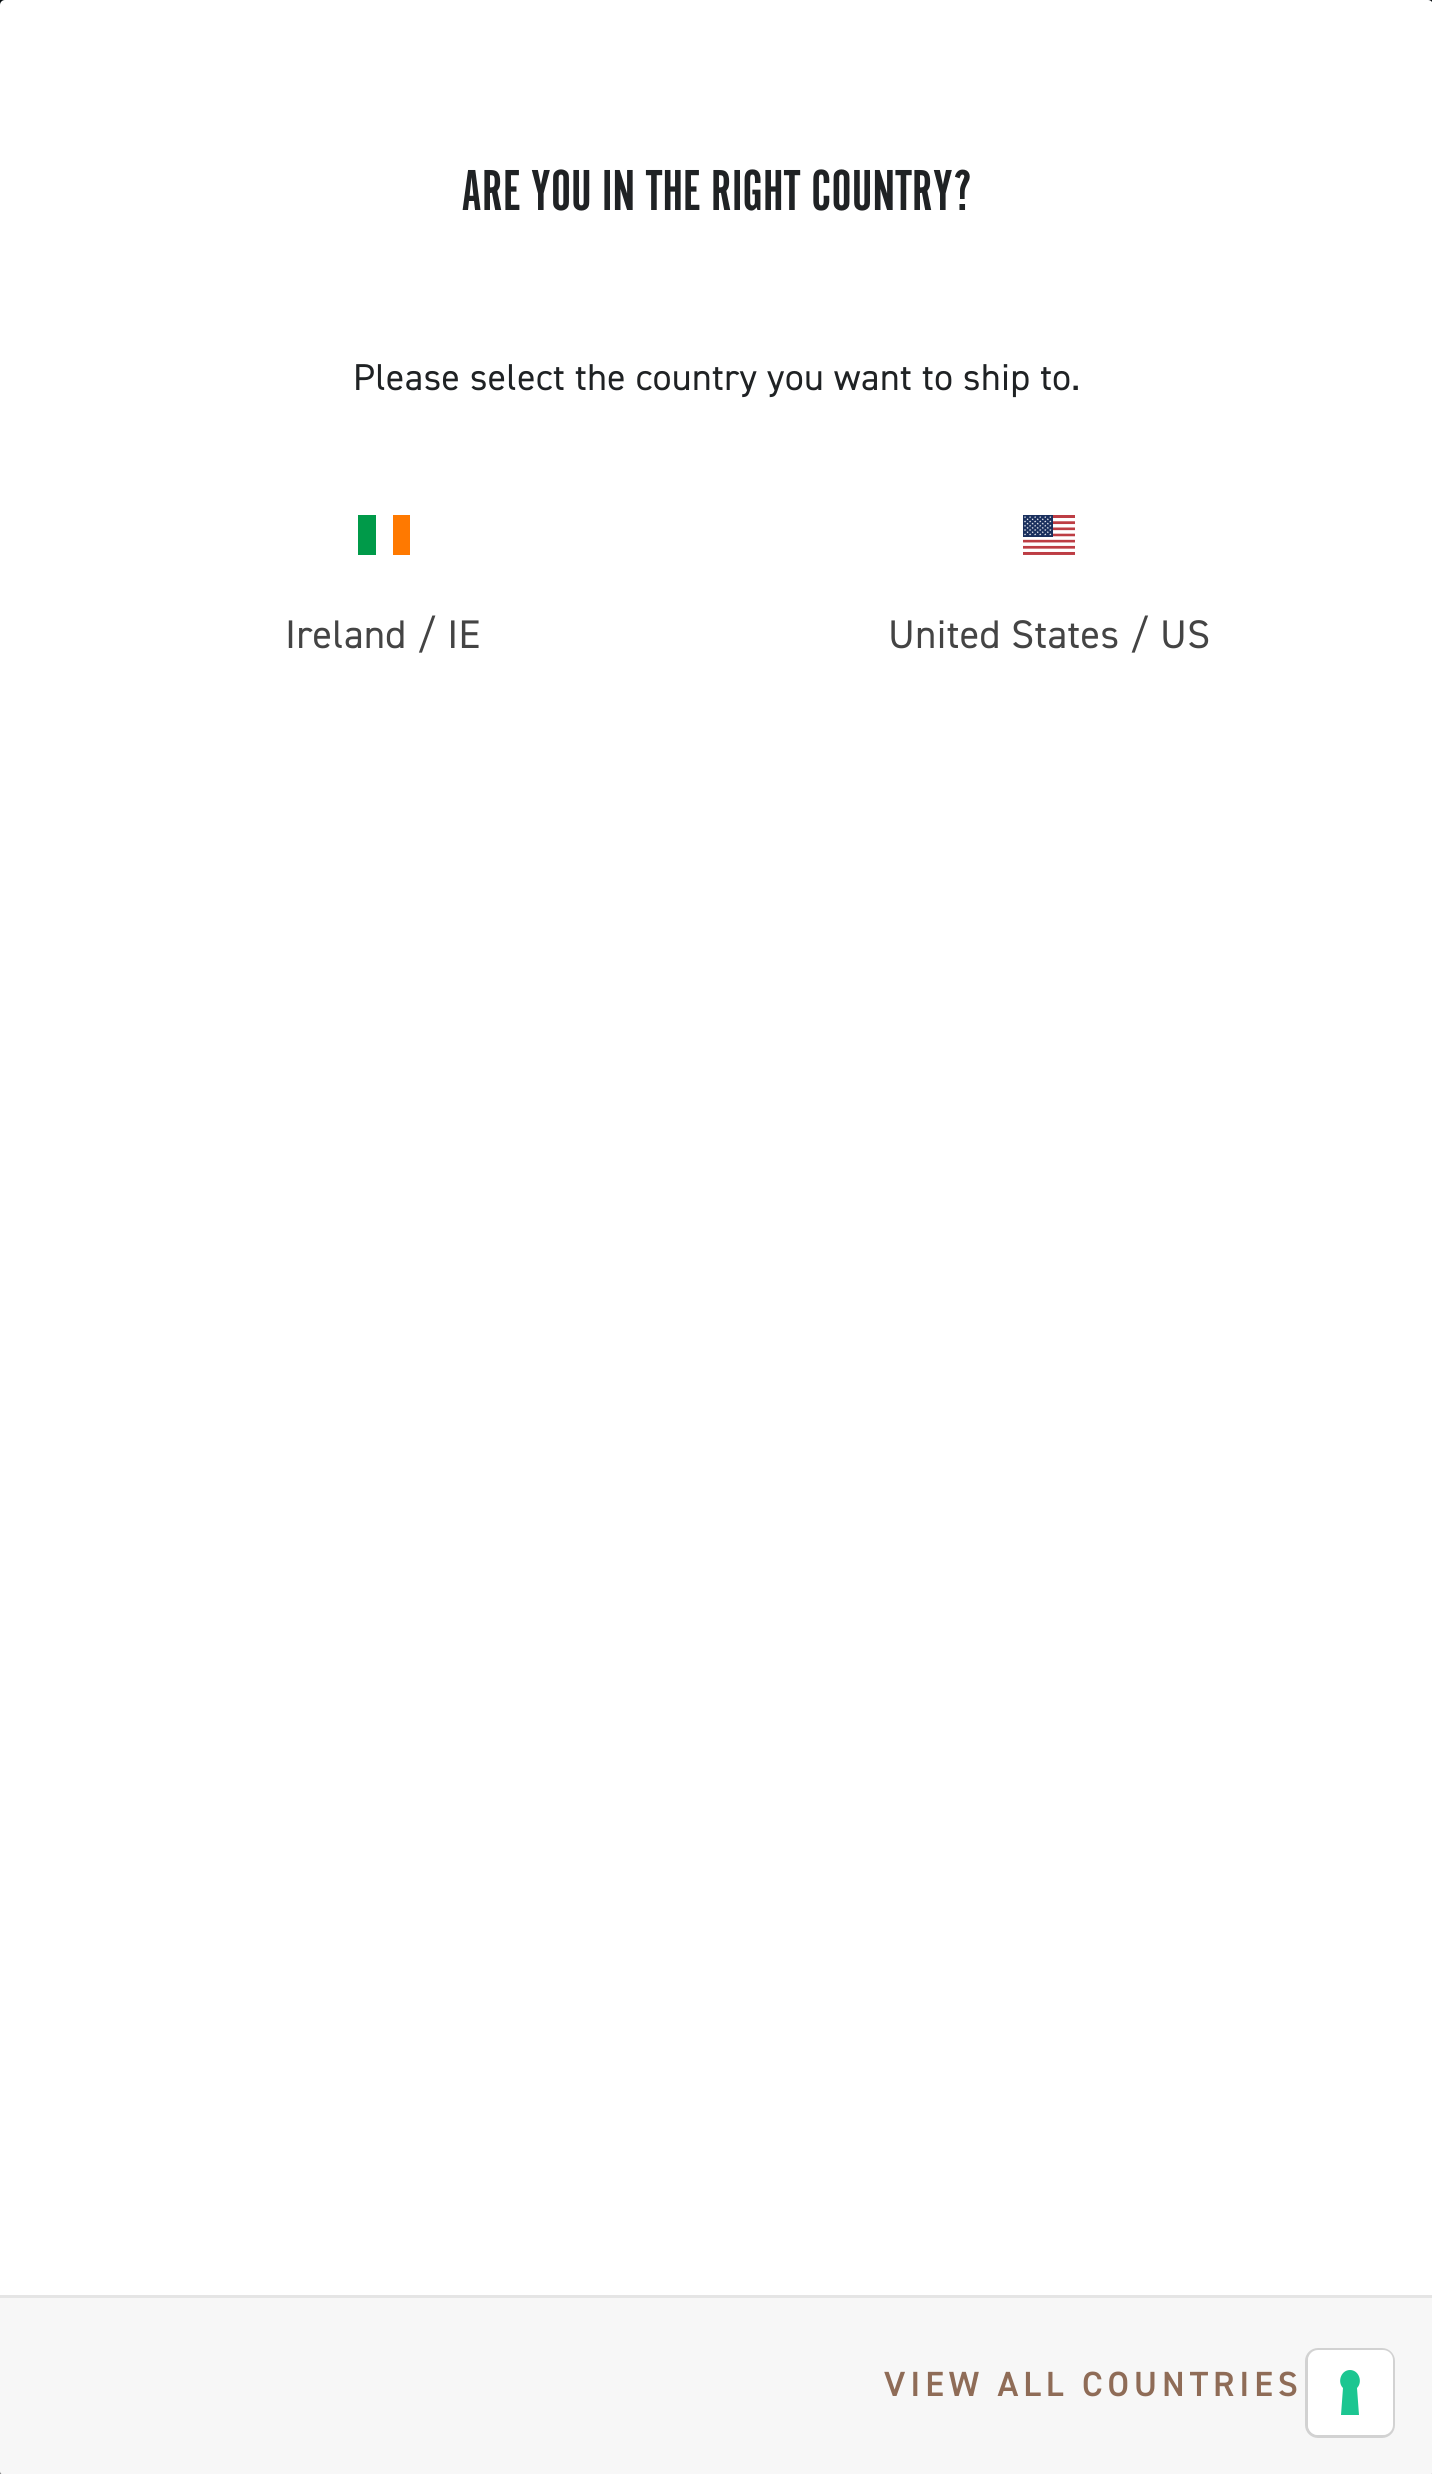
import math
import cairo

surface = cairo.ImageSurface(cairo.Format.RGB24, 1432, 2474)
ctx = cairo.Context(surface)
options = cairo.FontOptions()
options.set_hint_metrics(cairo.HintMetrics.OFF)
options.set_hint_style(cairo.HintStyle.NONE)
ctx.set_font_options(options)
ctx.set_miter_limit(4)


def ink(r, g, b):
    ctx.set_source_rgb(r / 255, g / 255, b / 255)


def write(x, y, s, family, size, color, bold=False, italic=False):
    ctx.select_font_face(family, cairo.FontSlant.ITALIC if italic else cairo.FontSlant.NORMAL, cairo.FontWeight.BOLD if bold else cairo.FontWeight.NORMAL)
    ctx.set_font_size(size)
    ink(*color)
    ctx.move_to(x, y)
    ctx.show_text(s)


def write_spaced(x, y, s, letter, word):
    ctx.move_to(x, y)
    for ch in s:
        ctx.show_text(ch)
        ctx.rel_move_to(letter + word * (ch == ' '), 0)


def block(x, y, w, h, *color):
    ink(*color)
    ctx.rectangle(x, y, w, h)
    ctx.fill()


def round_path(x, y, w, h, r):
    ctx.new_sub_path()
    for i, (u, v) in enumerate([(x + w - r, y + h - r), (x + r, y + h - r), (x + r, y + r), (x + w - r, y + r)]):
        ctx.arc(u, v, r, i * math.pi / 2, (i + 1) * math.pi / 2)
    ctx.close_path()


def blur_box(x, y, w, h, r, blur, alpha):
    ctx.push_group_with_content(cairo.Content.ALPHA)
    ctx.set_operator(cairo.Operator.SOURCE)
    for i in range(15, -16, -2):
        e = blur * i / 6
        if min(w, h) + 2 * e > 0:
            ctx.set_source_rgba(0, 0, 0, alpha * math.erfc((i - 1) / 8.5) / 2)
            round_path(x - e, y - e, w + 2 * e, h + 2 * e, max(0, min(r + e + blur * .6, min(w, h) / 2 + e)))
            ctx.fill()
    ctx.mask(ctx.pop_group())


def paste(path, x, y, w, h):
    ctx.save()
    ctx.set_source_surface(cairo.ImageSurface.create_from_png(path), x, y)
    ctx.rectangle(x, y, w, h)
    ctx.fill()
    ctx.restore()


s1 = dict(family="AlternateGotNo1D", size=60, color=(31, 34, 36))

ink(153, 153, 153)
ctx.paint()
paste("pic1.png", 0, 0, 1432, 5)
ink(0, 0, 0)
blur_box(0, 10, 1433, 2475, 5, 20, 0.16)
ink(255, 255, 255)
round_path(0, 0, 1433, 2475, 5)
ctx.fill()
write(461, 210, "ARE YOU IN THE RIGHT COUNTRY?", **s1)
ctx.select_font_face("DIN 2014")
ctx.set_font_size(37.5)
write_spaced(353, 390, "Please select the country you want to ship to.", 0.4, 0)
block(358, 515, 18, 40, 0, 154, 73)
block(393, 515, 17, 40, 255, 121, 0)
ctx.set_font_size(40)
ink(68, 68, 68)
write_spaced(285, 648, "Ireland / IE", 0.4, 0)
paste("pic2.png", 1023, 515, 52, 40)
write_spaced(888, 648, "United States / US", 0.4, 0)
ink(247, 247, 247)
ctx.new_path()
ctx.move_to(0, 2295)
ctx.line_to(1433, 2295)
ctx.line_to(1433, 2470)
ctx.curve_to(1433, 2473, 1431, 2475, 1428, 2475)
ctx.line_to(5, 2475)
ctx.curve_to(2, 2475, 0, 2473, 0, 2470)
ctx.close_path()
ctx.fill()
block(0, 2295, 1432, 3, 229, 229, 229)
ctx.select_font_face("DIN 2014 SemiBold")
ctx.set_font_size(35)
ink(143, 108, 87)
write_spaced(884, 2396, "VIEW ALL COUNTRIES", 4.9, 0)
round_path(1306.5, 2349.5, 87, 87, 11.5)
ink(210, 210, 210)
ctx.set_line_width(3)
ctx.stroke()
ink(255, 255, 255)
round_path(1308, 2350, 85, 85, 10)
ctx.fill()
ink(28, 198, 145)
ctx.set_fill_rule(cairo.FillRule.EVEN_ODD)
ctx.new_path()
ctx.move_to(1350, 2370)
ctx.curve_to(1359, 2370, 1363, 2382, 1357, 2388)
ctx.line_to(1359, 2415)
ctx.line_to(1341, 2415)
ctx.line_to(1343, 2388)
ctx.curve_to(1337, 2382, 1341, 2370, 1350, 2370)
ctx.close_path()
ctx.fill()
surface.write_to_png("screenshot.png")
